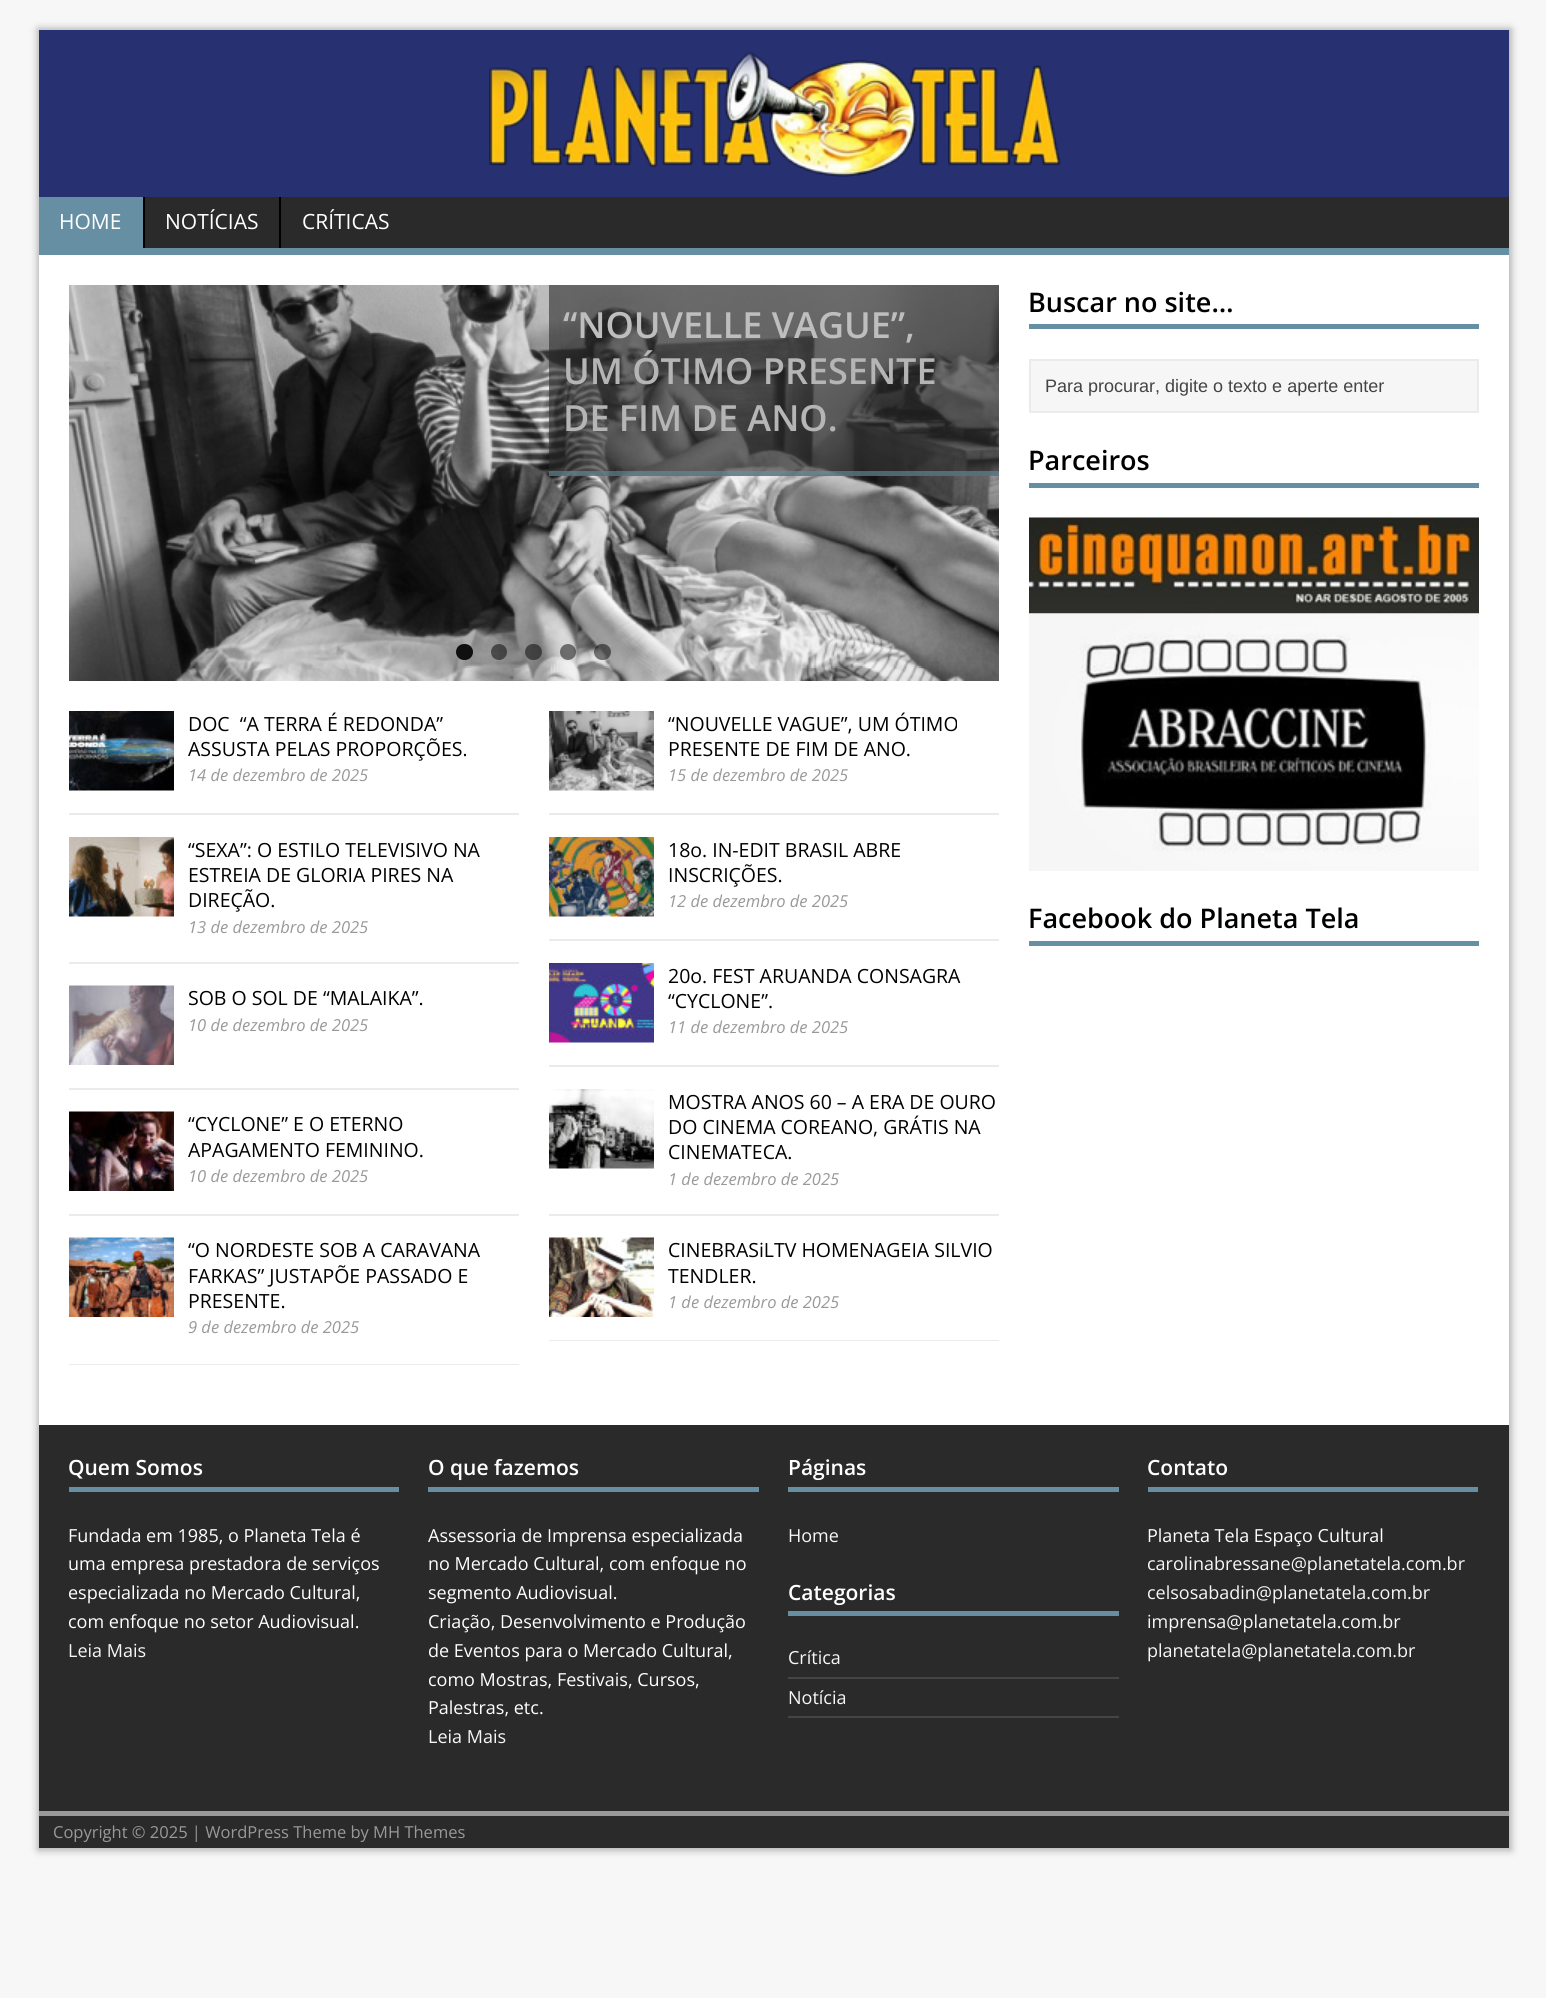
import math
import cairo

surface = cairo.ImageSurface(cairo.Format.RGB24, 1546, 1998)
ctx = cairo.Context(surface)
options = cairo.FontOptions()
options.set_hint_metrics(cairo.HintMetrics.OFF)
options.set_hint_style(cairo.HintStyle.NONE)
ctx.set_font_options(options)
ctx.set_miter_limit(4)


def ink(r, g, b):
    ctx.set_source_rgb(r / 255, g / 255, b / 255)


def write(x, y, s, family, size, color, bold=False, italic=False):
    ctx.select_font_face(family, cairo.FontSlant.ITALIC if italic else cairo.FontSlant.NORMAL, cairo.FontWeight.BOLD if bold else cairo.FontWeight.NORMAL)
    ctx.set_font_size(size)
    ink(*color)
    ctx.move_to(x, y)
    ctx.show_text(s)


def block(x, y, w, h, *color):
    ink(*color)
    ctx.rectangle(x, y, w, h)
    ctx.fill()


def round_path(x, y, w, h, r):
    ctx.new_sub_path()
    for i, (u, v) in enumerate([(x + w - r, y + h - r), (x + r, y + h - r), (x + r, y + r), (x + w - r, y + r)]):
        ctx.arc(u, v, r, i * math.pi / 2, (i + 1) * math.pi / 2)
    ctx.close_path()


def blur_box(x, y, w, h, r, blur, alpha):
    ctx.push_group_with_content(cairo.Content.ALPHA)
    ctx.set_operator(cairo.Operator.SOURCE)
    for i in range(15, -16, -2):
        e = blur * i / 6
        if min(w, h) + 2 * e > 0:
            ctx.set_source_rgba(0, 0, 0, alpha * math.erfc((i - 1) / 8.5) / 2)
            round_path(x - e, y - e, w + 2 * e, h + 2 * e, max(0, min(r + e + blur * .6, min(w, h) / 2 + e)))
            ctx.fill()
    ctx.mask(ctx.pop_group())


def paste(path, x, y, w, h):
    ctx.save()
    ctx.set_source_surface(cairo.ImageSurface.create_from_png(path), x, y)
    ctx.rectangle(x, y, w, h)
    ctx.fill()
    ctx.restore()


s1 = dict(family="Open Sans", size=21, color=(255, 255, 255))
s2 = dict(family="Open Sans SemiBold", size=36, color=(190, 190, 190))
s3 = dict(family="Open Sans SemiBold", size=36, color=(181, 181, 181))
s4 = dict(family="Open Sans", size=19.5, color=(0, 0, 0))
s5 = dict(family="Open Sans", size=16.5, color=(153, 153, 153), italic=True)
s6 = dict(family="Open Sans SemiBold", size=27, color=(0, 0, 0))
s7 = dict(family="Liberation Sans", size=18, color=(68, 68, 68))
s8 = dict(family="Open Sans SemiBold", size=21, color=(255, 255, 255))
s9 = dict(family="Open Sans", size=18, color=(255, 255, 255))
s10 = dict(family="Open Sans", size=18, color=(247, 247, 247))
s11 = dict(family="Open Sans", size=16.5, color=(153, 153, 153))

ink(247, 247, 247)
ctx.paint()
ink(168, 168, 168)
blur_box(38, 29, 1473, 1821, 0, 4, 1)
block(39, 30, 1470, 167, 39, 48, 113)
paste("pic1.png", 489, 52, 572, 125)
block(145, 197, 1364, 51, 42, 42, 42)
block(39, 248, 1470, 7, 102, 143, 163)
block(39, 197, 104, 51, 102, 143, 163)
write(59, 229, "HOME", **s1)
block(143, 197, 2, 51, 0, 0, 0)
write(165, 229, "NOTÍCIAS", **s1)
block(279, 197, 2, 51, 0, 0, 0)
write(302, 229, "CRÍTICAS", **s1)
block(39, 255, 1470, 1170, 255, 255, 255)
paste("pic2.png", 69, 285, 930, 396)
ctx.set_source_rgba(0.165, 0.165, 0.165, 0.6)
ctx.rectangle(549, 285, 450, 191)
ctx.fill()
ctx.set_source_rgba(0.4, 0.561, 0.639, 0.6)
ctx.rectangle(549, 471, 450, 5)
ctx.fill()
write(563, 338, "“NOUVELLE VAGUE”,", **s2)
write(563, 384, "UM ÓTIMO PRESENTE", **s3)
write(563, 431, "DE FIM DE ANO.", **s3)
ctx.set_source_rgba(0, 0, 0, 0.9)
round_path(456, 644, 17, 16, 8)
ctx.fill()
ctx.set_source_rgba(0, 0, 0, 0.5)
ctx.arc(499, 652, 8, 0, 2 * math.pi)
ctx.fill()
round_path(525, 644, 17, 16, 8)
ctx.fill()
ctx.arc(568, 652, 8, 0, 2 * math.pi)
ctx.fill()
round_path(594, 644, 17, 16, 8)
ctx.fill()
block(69, 813, 450, 2, 235, 235, 235)
paste("pic3.png", 69, 711, 105, 80)
write(188, 731, "DOC  “A TERRA É REDONDA”", **s4)
write(188, 756, "ASSUSTA PELAS PROPORÇÕES.", **s4)
write(188, 781, "14 de dezembro de 2025", **s5)
block(69, 962, 450, 2, 235, 235, 235)
paste("pic4.png", 69, 837, 105, 80)
write(188, 857, "“SEXA”: O ESTILO TELEVISIVO NA", **s4)
write(188, 882, "ESTREIA DE GLORIA PIRES NA", **s4)
write(188, 907, "DIREÇÃO.", **s4)
write(188, 933, "13 de dezembro de 2025", **s5)
block(69, 1088, 450, 2, 235, 235, 235)
paste("pic5.png", 69, 985, 105, 80)
write(188, 1005, "SOB O SOL DE “MALAIKA”.", **s4)
write(188, 1031, "10 de dezembro de 2025", **s5)
block(69, 1214, 450, 2, 235, 235, 235)
paste("pic6.png", 69, 1111, 105, 80)
write(188, 1131, "“CYCLONE” E O ETERNO", **s4)
write(188, 1157, "APAGAMENTO FEMININO.", **s4)
write(188, 1182, "10 de dezembro de 2025", **s5)
block(69, 1364, 450, 1, 235, 235, 235)
paste("pic7.png", 69, 1237, 105, 80)
write(188, 1257, "“O NORDESTE SOB A CARAVANA", **s4)
write(188, 1283, "FARKAS” JUSTAPÕE PASSADO E", **s4)
write(188, 1308, "PRESENTE.", **s4)
write(188, 1333, "9 de dezembro de 2025", **s5)
block(549, 813, 450, 2, 235, 235, 235)
paste("pic8.png", 549, 711, 105, 80)
write(668, 731, "“NOUVELLE VAGUE”, UM ÓTIMO", **s4)
write(668, 756, "PRESENTE DE FIM DE ANO.", **s4)
write(668, 781, "15 de dezembro de 2025", **s5)
block(549, 939, 450, 2, 235, 235, 235)
paste("pic9.png", 549, 837, 105, 80)
write(668, 857, "18o. IN-EDIT BRASIL ABRE", **s4)
write(668, 882, "INSCRIÇÕES.", **s4)
write(668, 907, "12 de dezembro de 2025", **s5)
block(549, 1065, 450, 2, 235, 235, 235)
paste("pic10.png", 549, 963, 105, 80)
write(668, 983, "20o. FEST ARUANDA CONSAGRA", **s4)
write(668, 1008, "“CYCLONE”.", **s4)
write(668, 1033, "11 de dezembro de 2025", **s5)
block(549, 1214, 450, 2, 235, 235, 235)
paste("pic11.png", 549, 1089, 105, 80)
write(668, 1109, "MOSTRA ANOS 60 – A ERA DE OURO", **s4)
write(668, 1134, "DO CINEMA COREANO, GRÁTIS NA", **s4)
write(668, 1159, "CINEMATECA.", **s4)
write(668, 1185, "1 de dezembro de 2025", **s5)
block(549, 1340, 450, 1, 235, 235, 235)
paste("pic12.png", 549, 1237, 105, 80)
write(668, 1257, "CINEBRASiLTV HOMENAGEIA SILVIO", **s4)
write(668, 1283, "TENDLER.", **s4)
write(668, 1308, "1 de dezembro de 2025", **s5)
block(1029, 324, 450, 5, 102, 143, 163)
write(1028, 312, "Buscar no site…", **s6)
ink(246, 246, 246)
ctx.rectangle(1030, 360, 448, 52)
ctx.fill_preserve()
ink(235, 235, 235)
ctx.stroke()
write(1045, 392, "Para procurar, digite o texto e aperte enter", **s7)
block(1029, 483, 450, 5, 102, 143, 163)
write(1028, 470, "Parceiros", **s6)
paste("pic13.png", 1029, 517, 450, 97)
paste("pic14.png", 1029, 613, 450, 258)
block(1029, 941, 450, 5, 102, 143, 163)
write(1028, 928, "Facebook do Planeta Tela", **s6)
block(39, 1425, 1470, 386, 42, 42, 42)
block(69, 1487, 330, 5, 102, 143, 163)
write(68, 1475, "Quem Somos", **s8)
write(68, 1542, "Fundada em 1985, o Planeta Tela é", **s9)
write(68, 1570, "uma empresa prestadora de serviços", **s9)
write(68, 1599, "especializada no Mercado Cultural,", **s9)
write(68, 1628, "com enfoque no setor Audiovisual.", **s9)
write(68, 1657, "Leia Mais", **s10)
block(428, 1487, 331, 5, 102, 143, 163)
write(428, 1475, "O que fazemos", **s8)
write(428, 1542, "Assessoria de Imprensa especializada", **s9)
write(428, 1570, "no Mercado Cultural, com enfoque no", **s9)
write(428, 1599, "segmento Audiovisual.", **s9)
write(428, 1628, "Criação, Desenvolvimento e Produção", **s9)
write(428, 1657, "de Eventos para o Mercado Cultural,", **s9)
write(428, 1686, "como Mostras, Festivais, Cursos,", **s9)
write(428, 1714, "Palestras, etc.", **s9)
write(428, 1743, "Leia Mais", **s10)
block(788, 1487, 331, 5, 102, 143, 163)
write(788, 1475, "Páginas", **s8)
write(788, 1542, "Home", **s10)
block(788, 1611, 331, 5, 102, 143, 163)
write(788, 1600, "Categorias", **s8)
block(788, 1677, 331, 2, 69, 69, 69)
write(788, 1664, "Crítica", **s10)
block(788, 1716, 331, 2, 69, 69, 69)
write(788, 1704, "Notícia", **s10)
block(1148, 1487, 330, 5, 102, 143, 163)
write(1147, 1475, "Contato", **s8)
write(1147, 1542, "Planeta Tela Espaço Cultural", **s9)
write(1147, 1570, "carolinabressane@planetatela.com.br", **s10)
write(1147, 1599, "celsosabadin@planetatela.com.br", **s10)
write(1147, 1628, "imprensa@planetatela.com.br", **s10)
write(1147, 1657, "planetatela@planetatela.com.br", **s10)
block(39, 1816, 1470, 32, 42, 42, 42)
block(39, 1811, 1470, 5, 153, 153, 153)
write(53, 1838, "Copyright © 2025 | WordPress Theme by MH Themes", **s11)
surface.write_to_png("screenshot.png")
